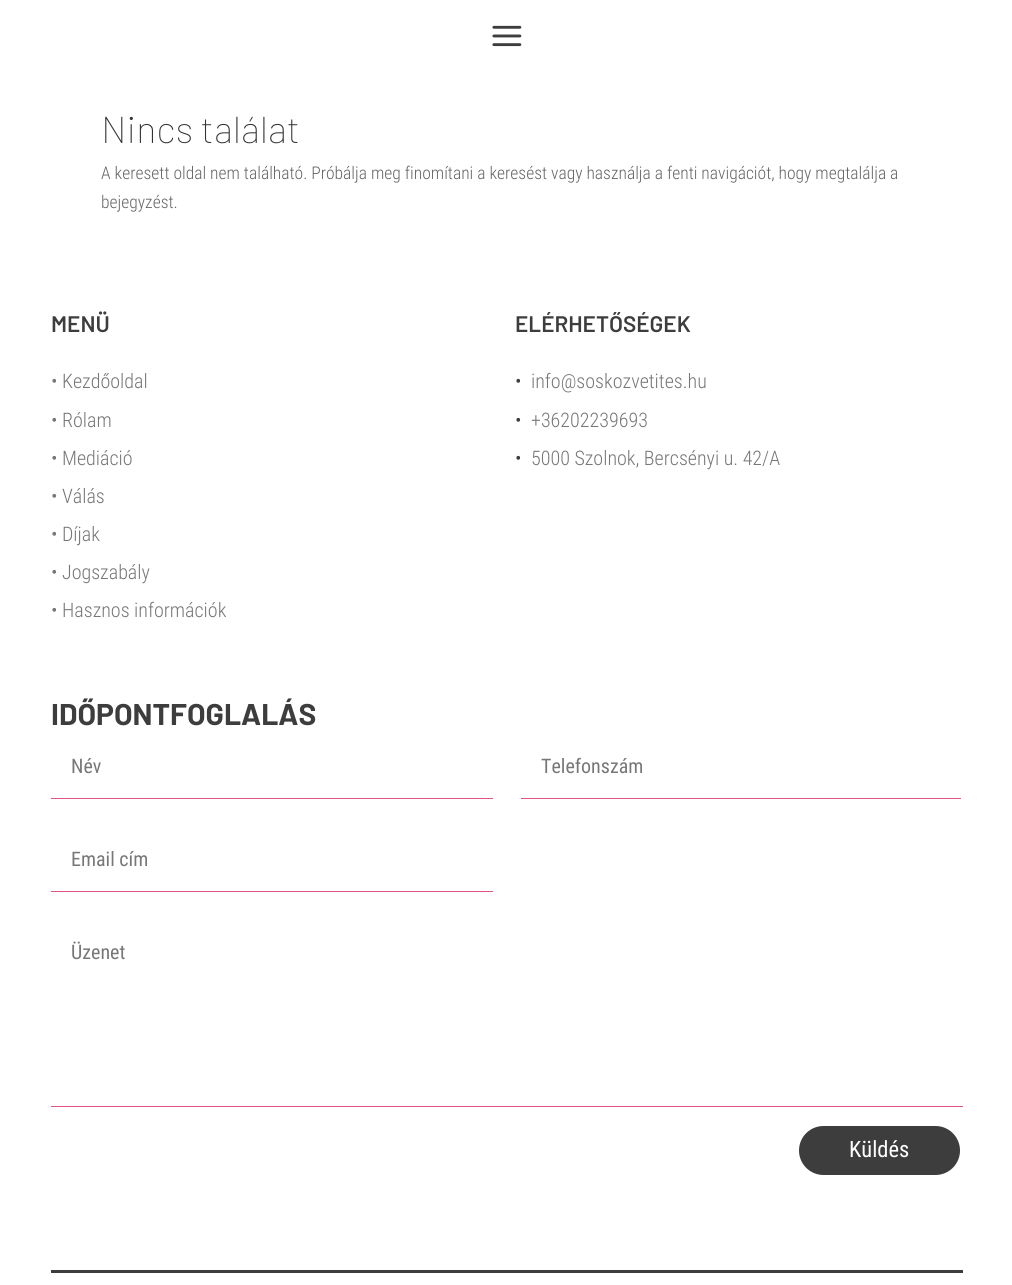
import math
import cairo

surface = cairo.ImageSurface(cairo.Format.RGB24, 1012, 1285)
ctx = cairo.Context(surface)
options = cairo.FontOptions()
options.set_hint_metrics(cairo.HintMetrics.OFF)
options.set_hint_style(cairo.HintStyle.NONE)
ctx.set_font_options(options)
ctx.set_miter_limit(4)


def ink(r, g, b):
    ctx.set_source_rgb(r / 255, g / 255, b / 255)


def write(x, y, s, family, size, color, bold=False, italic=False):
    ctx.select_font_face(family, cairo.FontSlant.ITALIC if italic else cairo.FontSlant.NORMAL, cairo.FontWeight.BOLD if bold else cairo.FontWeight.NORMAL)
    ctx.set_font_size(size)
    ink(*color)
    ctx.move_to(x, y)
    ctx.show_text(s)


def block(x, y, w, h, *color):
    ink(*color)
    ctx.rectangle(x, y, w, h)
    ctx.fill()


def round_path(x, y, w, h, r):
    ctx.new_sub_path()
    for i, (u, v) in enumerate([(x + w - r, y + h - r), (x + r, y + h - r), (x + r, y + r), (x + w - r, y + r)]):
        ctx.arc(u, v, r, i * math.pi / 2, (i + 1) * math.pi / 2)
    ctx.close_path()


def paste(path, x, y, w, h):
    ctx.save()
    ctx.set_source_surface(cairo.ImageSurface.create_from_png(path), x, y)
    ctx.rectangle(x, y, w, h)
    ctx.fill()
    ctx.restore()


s1 = dict(family="Barlow Thin", size=37.5, color=(51, 51, 51))
s2 = dict(family="Roboto Condensed Light", size=17.5, color=(102, 102, 102))
s3 = dict(family="Barlow SemiBold", size=22.5, color=(61, 61, 61))
s4 = dict(family="Roboto Condensed Light", size=20, color=(119, 119, 119))
s5 = dict(family="Roboto Condensed Light", size=20, color=(61, 61, 61))
s6 = dict(family="Barlow", size=30, color=(61, 61, 61), bold=True)
s7 = dict(family="Roboto Condensed", size=20, color=(119, 119, 119))
s8 = dict(family="Roboto Condensed", size=22.5, color=(255, 255, 255))

ink(255, 255, 255)
ctx.paint()
paste("pic1.png", 492, 25, 30, 22)
write(101, 143, "Nincs találat", **s1)
write(101, 179, "A keresett oldal nem található. Próbálja meg finomítani a keresést vagy használja a fenti navigációt, hogy megtalálja a", **s2)
write(101, 208, "bejegyzést.", **s2)
write(51, 332, "MENÜ", **s3)
write(51, 388, "• Kezdőoldal", **s4)
write(51, 427, "• Rólam", **s4)
write(51, 465, "• Mediáció", **s4)
write(51, 503, "• Válás", **s4)
write(51, 541, "• Díjak", **s4)
write(51, 579, "• Jogszabály", **s4)
write(51, 617, "• Hasznos információk", **s4)
write(515, 332, "ELÉRHETŐSÉGEK", **s3)
write(515, 388, "•", **s5)
write(531, 388, "info@soskozvetites.hu", **s4)
write(515, 427, "•", **s5)
write(531, 427, "+36202239693", **s4)
write(515, 465, "•", **s5)
write(531, 465, "5000 Szolnok, Bercsényi u. 42/A", **s4)
write(51, 725, "IDŐPONTFOGLALÁS", **s6)
block(51, 798, 442, 1, 224, 83, 130)
write(71, 773, "Név", **s7)
block(521, 798, 440, 1, 224, 83, 130)
write(541, 773, "Telefonszám", **s7)
block(51, 891, 442, 1, 224, 83, 130)
write(71, 866, "Email cím", **s7)
block(51, 1106, 912, 1, 224, 83, 130)
write(71, 959, "Üzenet", **s7)
ink(61, 61, 61)
round_path(797.5, 1124.5, 164, 52, 26)
ctx.fill_preserve()
ink(255, 255, 255)
ctx.set_line_width(3)
ctx.stroke()
write(849, 1157, "Küldés", **s8)
block(51, 1270, 912, 3, 61, 61, 61)
surface.write_to_png("screenshot.png")
